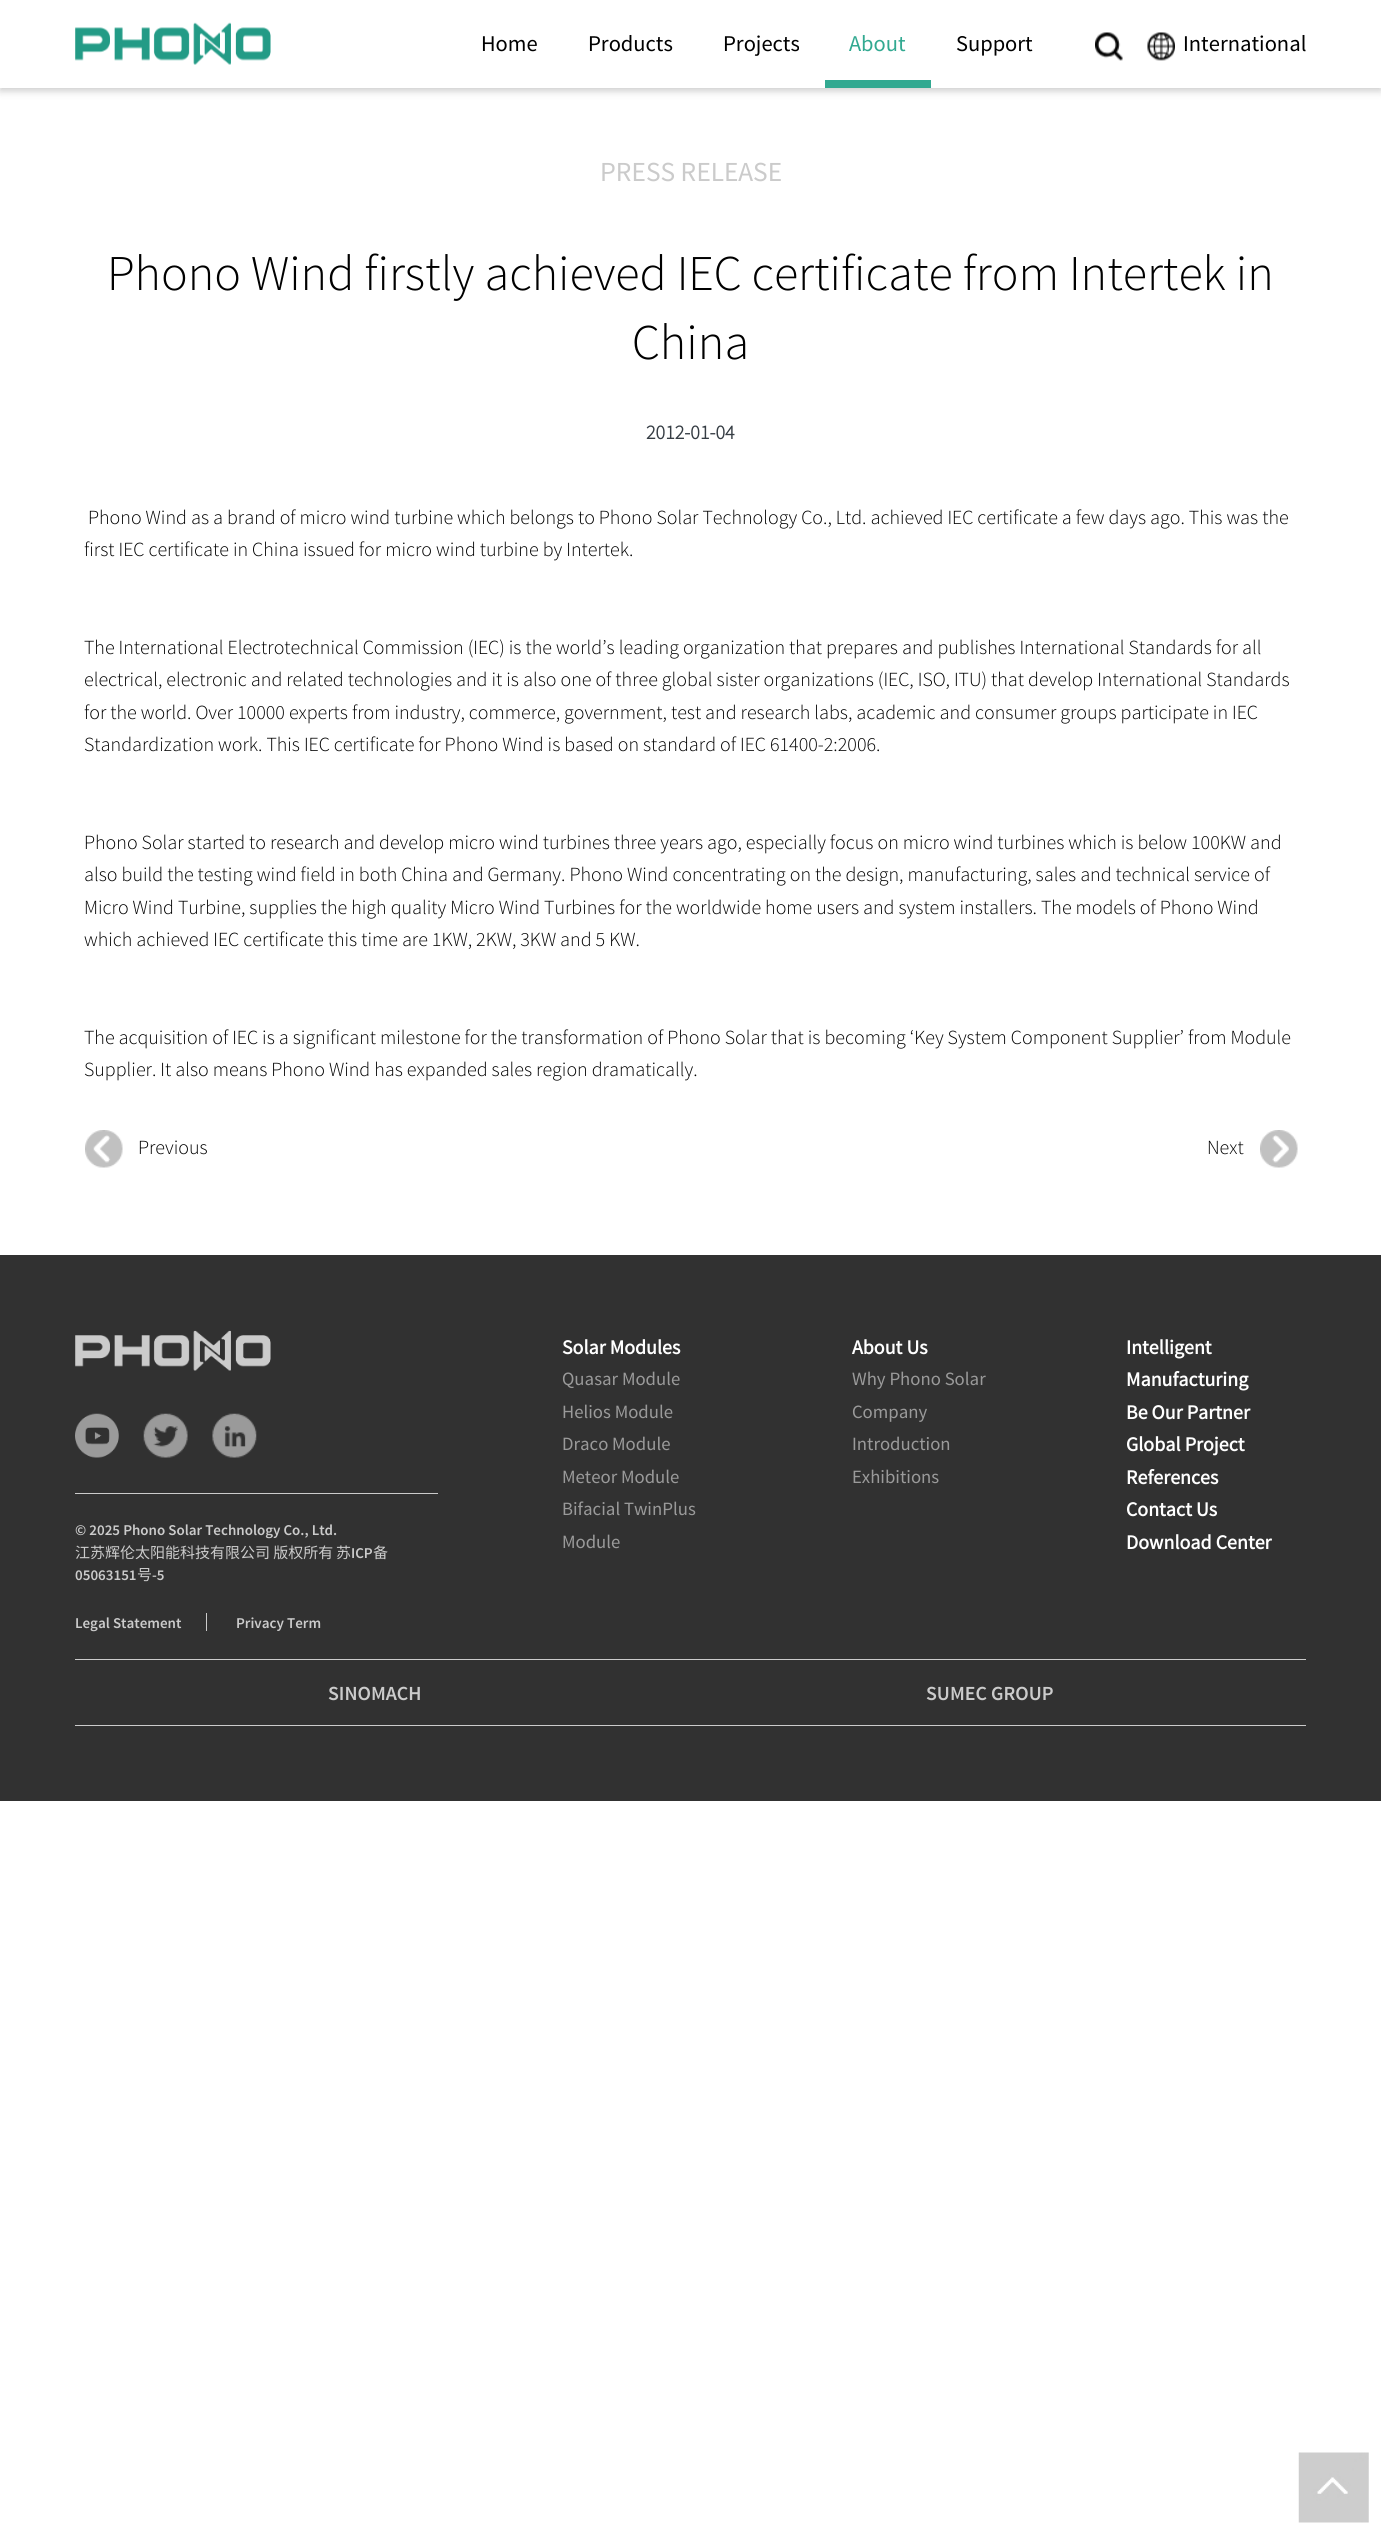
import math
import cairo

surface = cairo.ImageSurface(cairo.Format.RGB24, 1381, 2535)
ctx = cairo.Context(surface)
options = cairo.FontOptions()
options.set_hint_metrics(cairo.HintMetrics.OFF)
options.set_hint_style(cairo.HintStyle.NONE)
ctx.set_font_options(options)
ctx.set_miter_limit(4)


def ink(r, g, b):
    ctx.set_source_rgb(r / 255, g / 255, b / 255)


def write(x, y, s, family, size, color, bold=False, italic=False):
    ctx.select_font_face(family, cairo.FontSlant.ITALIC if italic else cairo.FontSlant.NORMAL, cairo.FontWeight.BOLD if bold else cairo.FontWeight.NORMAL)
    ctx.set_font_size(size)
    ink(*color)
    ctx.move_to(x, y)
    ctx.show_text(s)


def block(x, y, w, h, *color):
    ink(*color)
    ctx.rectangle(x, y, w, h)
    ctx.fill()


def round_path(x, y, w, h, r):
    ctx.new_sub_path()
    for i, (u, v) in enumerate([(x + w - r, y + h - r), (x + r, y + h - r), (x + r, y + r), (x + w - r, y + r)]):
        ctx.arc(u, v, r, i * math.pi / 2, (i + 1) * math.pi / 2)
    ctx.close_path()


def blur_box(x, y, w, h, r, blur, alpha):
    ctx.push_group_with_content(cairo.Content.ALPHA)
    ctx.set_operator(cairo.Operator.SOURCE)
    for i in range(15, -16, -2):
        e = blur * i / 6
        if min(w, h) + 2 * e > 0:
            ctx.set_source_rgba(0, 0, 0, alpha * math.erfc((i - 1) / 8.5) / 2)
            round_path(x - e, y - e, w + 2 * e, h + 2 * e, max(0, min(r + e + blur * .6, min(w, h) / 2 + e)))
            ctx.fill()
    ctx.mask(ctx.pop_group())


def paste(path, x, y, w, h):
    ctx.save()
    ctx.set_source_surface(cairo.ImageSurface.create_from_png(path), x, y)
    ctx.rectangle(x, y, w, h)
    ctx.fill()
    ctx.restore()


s1 = dict(family="Source Sans Pro", size=22.5, color=(0, 0, 0))
s2 = dict(family="Source Sans Pro", size=22.5, color=(50, 169, 145))
s3 = dict(family="Source Sans Pro", size=27.5, color=(203, 203, 203))
s4 = dict(family="Source Sans Pro Light", size=50, color=(0, 0, 0))
s5 = dict(family="Source Sans Pro", size=20, color=(54, 61, 68), bold=True)
s6 = dict(family="Source Sans Pro Light", size=20, color=(0, 0, 0))
s7 = dict(family="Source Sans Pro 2", size=20, color=(255, 255, 255), bold=True)
s8 = dict(family="Source Sans Pro", size=18.75, color=(154, 154, 154))
s9 = dict(family="Source Sans Pro SemiBold", size=15, color=(203, 203, 203))
s10 = dict(family="Noto Sans CJK SC", size=15, color=(203, 203, 203))
s11 = dict(family="Source Sans Pro SemiBold", size=20, color=(203, 203, 203))

ink(255, 255, 255)
ctx.paint()
ctx.save()
ctx.set_fill_rule(cairo.FillRule.EVEN_ODD)
ctx.new_path()
ctx.move_to(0, 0)
ctx.line_to(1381, 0)
ctx.line_to(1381, 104)
ctx.line_to(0, 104)
ctx.close_path()
ctx.move_to(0, 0)
ctx.line_to(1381, 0)
ctx.line_to(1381, 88)
ctx.line_to(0, 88)
ctx.close_path()
ctx.clip()
ink(0, 0, 0)
blur_box(0, 4, 1381, 87, 0, 4, 0.2)
ctx.restore()
ctx.set_source_rgba(1, 1, 1, 0.95)
ctx.rectangle(0, 87, 1381, 1)
ctx.fill()
paste("pic1.png", 75, 22, 196, 43)
write(481, 51, "Home", **s1)
write(588, 51, "Products", **s1)
write(723, 51, "Projects", **s1)
block(825, 80, 106, 8, 50, 169, 145)
write(849, 51, "About", **s2)
write(956, 51, "Support", **s1)
paste("pic2.png", 1095, 32, 28, 29)
paste("pic3.png", 1147, 32, 28, 29)
write(1183, 51, "International", **s1)
write(600, 181, "PRESS RELEASE", **s3)
write(107, 290, "Phono Wind firstly achieved IEC certificate from Intertek in", **s4)
write(632, 359, "China", **s4)
write(646, 439, "2012-01-04", **s5)
write(88, 524, "Phono Wind as a brand of micro wind turbine which belongs to Phono Solar Technology Co., Ltd. achieved IEC certificate a few days ago. This was the", **s6)
write(84, 556, "first IEC certificate in China issued for micro wind turbine by Intertek.", **s6)
write(84, 654, "The International Electrotechnical Commission (IEC) is the world’s leading organization that prepares and publishes International Standards for all", **s6)
write(84, 686, "electrical, electronic and related technologies and it is also one of three global sister organizations (IEC, ISO, ITU) that develop International Standards", **s6)
write(84, 719, "for the world. Over 10000 experts from industry, commerce, government, test and research labs, academic and consumer groups participate in IEC", **s6)
write(84, 751, "Standardization work. This IEC certificate for Phono Wind is based on standard of IEC 61400-2:2006.", **s6)
write(84, 849, "Phono Solar started to research and develop micro wind turbines three years ago, especially focus on micro wind turbines which is below 100KW and", **s6)
write(84, 881, "also build the testing wind field in both China and Germany. Phono Wind concentrating on the design, manufacturing, sales and technical service of", **s6)
write(84, 914, "Micro Wind Turbine, supplies the high quality Micro Wind Turbines for the worldwide home users and system installers. The models of Phono Wind", **s6)
write(84, 946, "which achieved IEC certificate this time are 1KW, 2KW, 3KW and 5 KW.", **s6)
write(84, 1044, "The acquisition of IEC is a significant milestone for the transformation of Phono Solar that is becoming ‘Key System Component Supplier’ from Module", **s6)
write(84, 1076, "Supplier. It also means Phono Wind has expanded sales region dramatically.", **s6)
paste("pic4.png", 85, 1130, 38, 38)
write(138, 1154, "Previous", **s6)
write(1207, 1154, "Next", **s6)
paste("pic5.png", 1260, 1130, 38, 38)
block(0, 1255, 1381, 546, 49, 49, 49)
write(562, 1354, "Solar Modules", **s7)
write(562, 1385, "Quasar Module", **s8)
write(562, 1418, "Helios Module", **s8)
write(562, 1450, "Draco Module", **s8)
write(562, 1483, "Meteor Module", **s8)
write(562, 1515, "Bifacial TwinPlus", **s8)
write(562, 1548, "Module", **s8)
write(852, 1354, "About Us", **s7)
write(852, 1385, "Why Phono Solar", **s8)
write(852, 1418, "Company", **s8)
write(852, 1450, "Introduction", **s8)
write(852, 1483, "Exhibitions", **s8)
write(1126, 1354, "Intelligent", **s7)
write(1126, 1386, "Manufacturing", **s7)
write(1126, 1419, "Be Our Partner", **s7)
write(1126, 1451, "Global Project", **s7)
write(1126, 1484, "References", **s7)
write(1126, 1516, "Contact Us", **s7)
write(1126, 1549, "Download Center", **s7)
paste("pic6.png", 75, 1330, 196, 41)
block(75, 1493, 363, 1, 203, 203, 203)
paste("pic7.png", 75, 1413, 44, 45)
paste("pic8.png", 143, 1413, 45, 45)
paste("pic9.png", 212, 1413, 45, 45)
write(75, 1535, "© 2025 Phono Solar Technology Co., Ltd.", **s9)
write(75, 1558, "江苏辉伦太阳能科技有限公司 版权所有", **s10)
write(336, 1558, "苏", **s10)
write(351, 1558, "ICP", **s9)
write(373, 1558, "备", **s10)
write(75, 1580, "05063151", **s9)
write(137, 1580, "号", **s10)
write(152, 1580, "-5", **s9)
write(75, 1628, "Legal Statement", **s9)
block(206, 1613, 1, 18, 203, 203, 203)
write(236, 1628, "Privacy Term", **s9)
block(75, 1659, 1231, 1, 203, 203, 203)
block(75, 1725, 1231, 1, 203, 203, 203)
write(328, 1700, "SINOMACH", **s11)
write(926, 1700, "SUMEC GROUP", **s11)
paste("pic10.png", 1298, 2452, 71, 71)
surface.write_to_png("screenshot.png")
